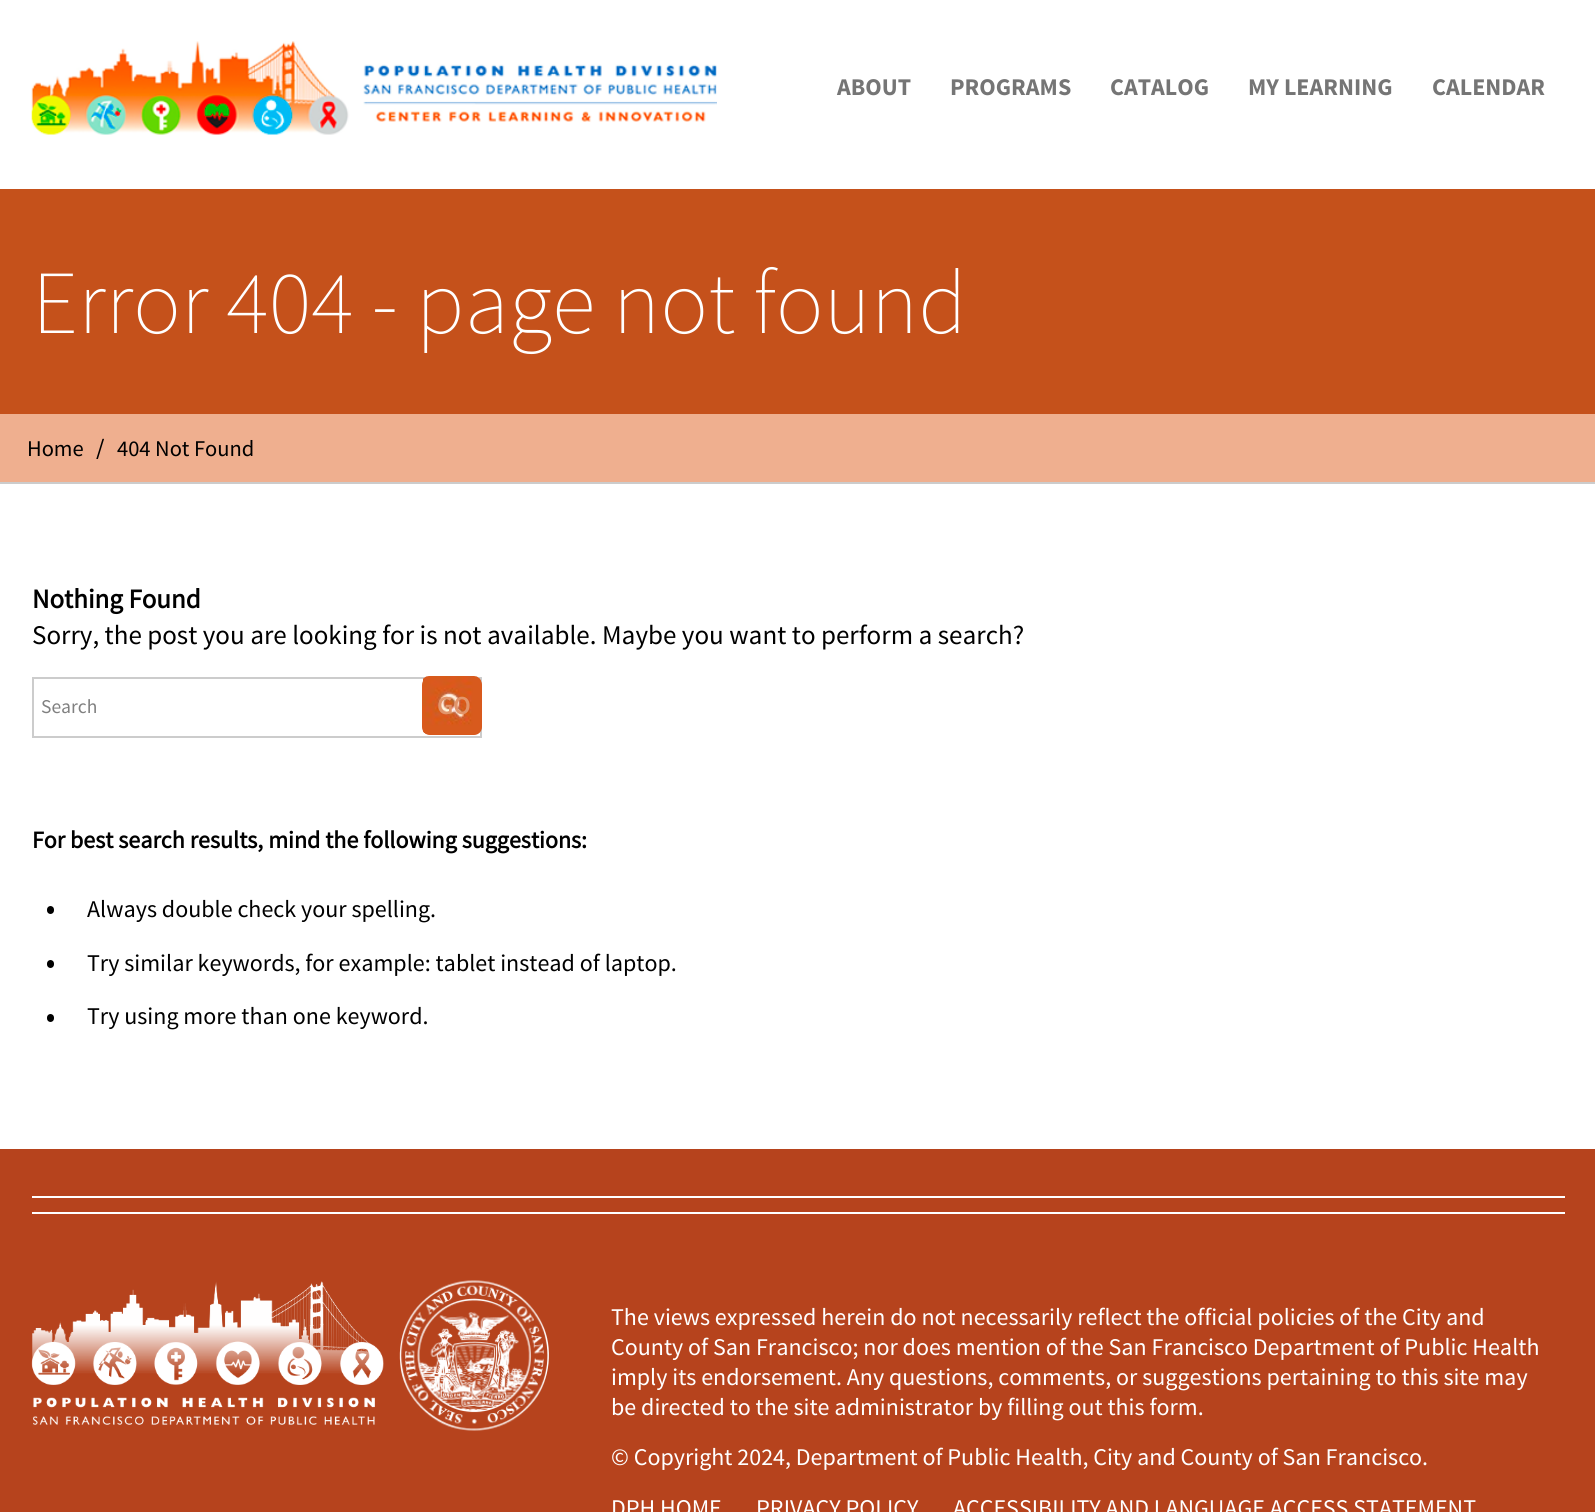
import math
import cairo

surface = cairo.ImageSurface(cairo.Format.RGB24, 1595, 1512)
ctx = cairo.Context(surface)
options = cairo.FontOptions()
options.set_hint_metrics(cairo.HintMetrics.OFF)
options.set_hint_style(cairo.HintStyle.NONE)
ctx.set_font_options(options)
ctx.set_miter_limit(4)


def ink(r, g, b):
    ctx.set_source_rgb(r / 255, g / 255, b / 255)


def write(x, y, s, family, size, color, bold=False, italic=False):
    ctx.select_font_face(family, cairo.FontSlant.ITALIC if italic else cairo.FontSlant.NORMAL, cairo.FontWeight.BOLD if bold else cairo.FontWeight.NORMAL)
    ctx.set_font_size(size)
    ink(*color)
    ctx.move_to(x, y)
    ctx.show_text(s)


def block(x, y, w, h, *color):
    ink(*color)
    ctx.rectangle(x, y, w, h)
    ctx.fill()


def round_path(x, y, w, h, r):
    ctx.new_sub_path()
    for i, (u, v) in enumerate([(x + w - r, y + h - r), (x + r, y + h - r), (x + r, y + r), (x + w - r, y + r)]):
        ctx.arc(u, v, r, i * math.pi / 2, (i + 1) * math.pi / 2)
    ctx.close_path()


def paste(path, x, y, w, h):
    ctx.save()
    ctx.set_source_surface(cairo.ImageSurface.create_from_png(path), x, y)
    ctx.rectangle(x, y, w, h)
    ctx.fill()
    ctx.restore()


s1 = dict(family="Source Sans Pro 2", size=24, color=(117, 117, 117), bold=True)
s2 = dict(family="Source Sans Pro ExtraLight", size=90, color=(255, 255, 255))
s3 = dict(family="Source Sans Pro", size=22.5, color=(0, 0, 0))
s4 = dict(family="Source Sans Pro", size=27, color=(0, 0, 0))
s5 = dict(family="Source Sans Pro", size=27, color=(0, 0, 0), bold=True)
s6 = dict(family="Source Sans Pro", size=19.5, color=(128, 128, 128))
s7 = dict(family="Source Sans Pro SemiBold", size=26, color=(226, 149, 107))
s8 = dict(family="Source Sans Pro", size=24, color=(0, 0, 0), bold=True)
s9 = dict(family="Source Sans Pro", size=24, color=(0, 0, 0))
s10 = dict(family="Source Sans Pro", size=24, color=(255, 255, 255))

ink(255, 255, 255)
ctx.paint()
paste("pic1.png", 31, 41, 686, 94)
write(837, 95, "ABOUT", **s1)
write(950, 95, "PROGRAMS", **s1)
write(1110, 95, "CATALOG", **s1)
write(1248, 95, "MY LEARNING", **s1)
write(1432, 95, "CALENDAR", **s1)
block(0, 189, 1595, 225, 197, 81, 27)
write(32, 333, "Error 404 - page not found", **s2)
block(0, 414, 1595, 68, 239, 175, 143)
write(27, 456, "Home", **s3)
ctx.save()
ctx.rectangle(89, 437, 24, 22)
ctx.clip()
write(95, 458, "/", **s4)
ctx.restore()
write(117, 456, "404 Not Found", **s3)
block(0, 482, 1595, 2, 204, 204, 204)
write(32, 608, "Nothing Found", **s5)
write(32, 644, "Sorry, the post you are looking for is not available. Maybe you want to perform a search?", **s4)
ctx.rectangle(33, 678, 448, 59)
ink(204, 204, 204)
ctx.stroke()
write(41, 713, "Search", **s6)
ink(217, 89, 30)
round_path(422, 677, 60, 58, 8)
ctx.fill()
paste("pic2.png", 423, 676, 59, 59)
write(437, 714, "GO", **s7)
write(32, 848, "For best search results, mind the following suggestions:", **s8)
round_path(47, 906, 7, 8, 3.5)
ctx.fill()
write(87, 917, "Always double check your spelling.", **s9)
round_path(47, 960, 7, 8, 3.5)
ctx.fill()
write(87, 971, "Try similar keywords, for example: tablet instead of laptop.", **s9)
round_path(47, 1014, 7, 8, 3.5)
ctx.fill()
write(87, 1024, "Try using more than one keyword.", **s9)
block(0, 1149, 1595, 363, 182, 67, 29)
block(32, 1196, 1533, 2, 255, 255, 255)
block(32, 1212, 1533, 2, 255, 255, 255)
paste("pic3.png", 31, 1281, 353, 144)
paste("pic4.png", 399, 1280, 150, 151)
write(611, 1325, "The views expressed herein do not necessarily reflect the official policies of the City and", **s10)
write(611, 1355, "County of San Francisco; nor does mention of the San Francisco Department of Public Health", **s10)
write(611, 1385, "imply its endorsement. Any questions, comments, or suggestions pertaining to this site may", **s10)
write(611, 1415, "be directed to the site administrator by filling out this form.", **s10)
write(611, 1465, "© Copyright 2024, Department of Public Health, City and County of San Francisco.", **s10)
write(611, 1516, "DPH HOME", **s10)
write(756, 1516, "PRIVACY POLICY", **s10)
write(953, 1516, "ACCESSIBILITY AND LANGUAGE ACCESS STATEMENT", **s10)
surface.write_to_png("screenshot.png")
